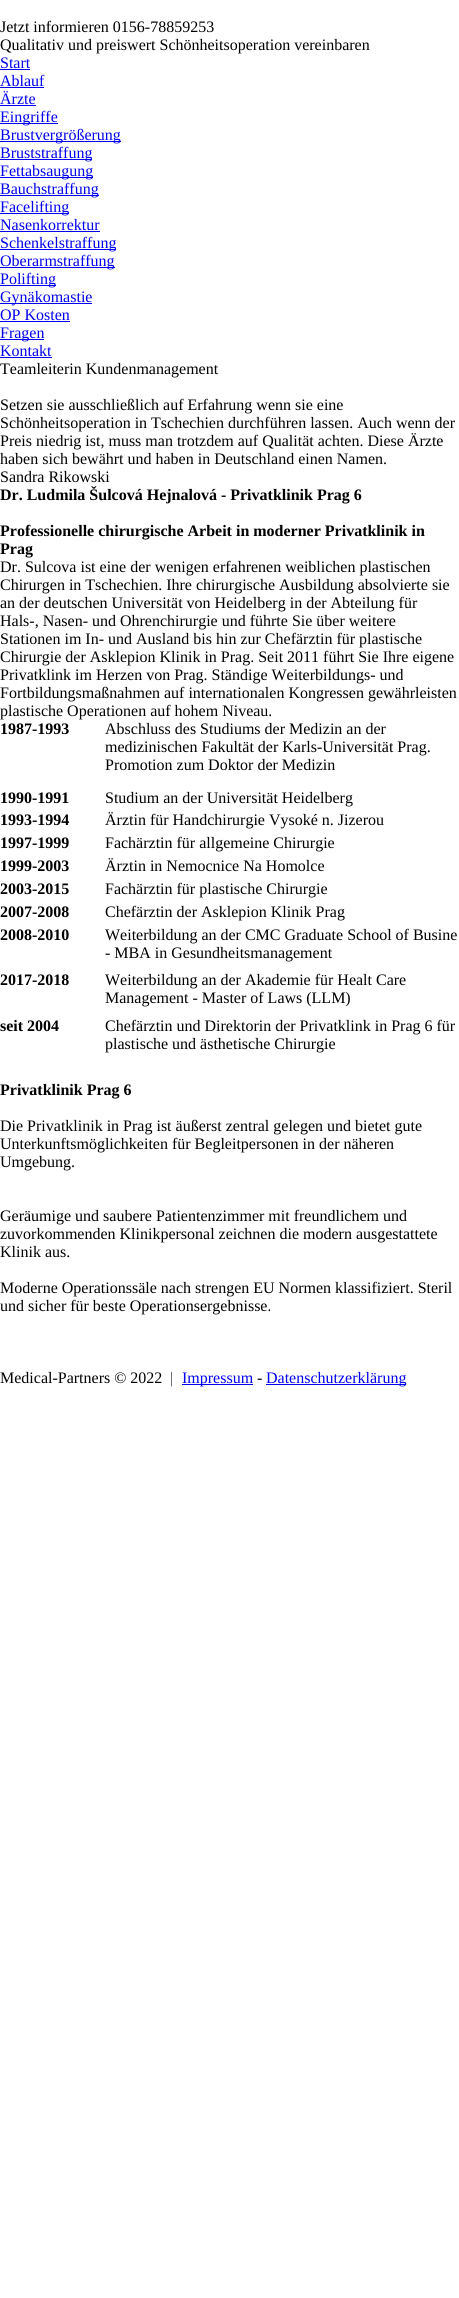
import math
import cairo

surface = cairo.ImageSurface(cairo.Format.RGB24, 459, 2298)
ctx = cairo.Context(surface)
options = cairo.FontOptions()
options.set_hint_metrics(cairo.HintMetrics.OFF)
options.set_hint_style(cairo.HintStyle.NONE)
ctx.set_font_options(options)
ctx.set_miter_limit(4)


def ink(r, g, b):
    ctx.set_source_rgb(r / 255, g / 255, b / 255)


def write(x, y, s, family, size, color, bold=False, italic=False):
    ctx.select_font_face(family, cairo.FontSlant.ITALIC if italic else cairo.FontSlant.NORMAL, cairo.FontWeight.BOLD if bold else cairo.FontWeight.NORMAL)
    ctx.set_font_size(size)
    ink(*color)
    ctx.move_to(x, y)
    ctx.show_text(s)


def block(x, y, w, h, *color):
    ink(*color)
    ctx.rectangle(x, y, w, h)
    ctx.fill()


s1 = dict(family="Liberation Serif", size=16, color=(0, 0, 0))
s2 = dict(family="Liberation Serif", size=16, color=(0, 0, 238))
s3 = dict(family="Liberation Serif", size=16, color=(0, 0, 0), bold=True)

ink(255, 255, 255)
ctx.paint()
write(0, 32, "Jetzt informieren 0156-78859253", **s1)
write(0, 50, "Qualitativ und preiswert Schönheitsoperation vereinbaren", **s1)
write(0, 68, "Start", **s2)
block(0, 69, 30, 1, 0, 0, 238)
write(0, 86, "Ablauf", **s2)
block(0, 87, 44, 1, 0, 0, 238)
write(0, 104, "Ärzte", **s2)
block(0, 105, 36, 1, 0, 0, 238)
block(0, 123, 58, 1, 0, 0, 238)
write(0, 122, "Eingriffe", **s2)
block(0, 141, 121, 1, 0, 0, 238)
write(0, 140, "Brustvergrößerung", **s2)
block(0, 159, 92, 1, 0, 0, 238)
write(0, 158, "Bruststraffung", **s2)
block(0, 177, 93, 1, 0, 0, 238)
write(0, 176, "Fettabsaugung", **s2)
block(0, 195, 99, 1, 0, 0, 238)
write(0, 194, "Bauchstraffung", **s2)
block(0, 213, 69, 1, 0, 0, 238)
write(0, 212, "Facelifting", **s2)
write(0, 230, "Nasenkorrektur", **s2)
block(0, 231, 100, 1, 0, 0, 238)
block(0, 249, 116, 1, 0, 0, 238)
write(0, 248, "Schenkelstraffung", **s2)
block(0, 267, 115, 1, 0, 0, 238)
write(0, 266, "Oberarmstraffung", **s2)
block(0, 285, 56, 1, 0, 0, 238)
write(0, 284, "Polifting", **s2)
block(0, 303, 92, 1, 0, 0, 238)
write(0, 302, "Gynäkomastie", **s2)
write(0, 320, "OP Kosten", **s2)
block(0, 321, 70, 1, 0, 0, 238)
block(0, 339, 44, 1, 0, 0, 238)
write(0, 338, "Fragen", **s2)
write(0, 356, "Kontakt", **s2)
block(0, 357, 52, 1, 0, 0, 238)
write(0, 374, "Teamleiterin Kundenmanagement", **s1)
write(0, 410, "Setzen sie ausschließlich auf Erfahrung wenn sie eine", **s1)
write(0, 428, "Schönheitsoperation in Tschechien durchführen lassen. Auch wenn der", **s1)
write(0, 446, "Preis niedrig ist, muss man trotzdem auf Qualität achten. Diese Ärzte", **s1)
write(0, 464, "haben sich bewährt und haben in Deutschland einen Namen.", **s1)
write(0, 482, "Sandra Rikowski", **s1)
write(0, 500, "Dr. Ludmila Šulcová Hejnalová - Privatklinik Prag 6", **s3)
write(0, 536, "Professionelle chirurgische Arbeit in moderner Privatklinik in", **s3)
write(0, 554, "Prag", **s3)
write(0, 572, "Dr. Sulcova ist eine der wenigen erfahrenen weiblichen plastischen", **s1)
write(0, 590, "Chirurgen in Tschechien. Ihre chirurgische Ausbildung absolvierte sie", **s1)
write(0, 608, "an der deutschen Universität von Heidelberg in der Abteilung für", **s1)
write(0, 626, "Hals-, Nasen- und Ohrenchirurgie und führte Sie über weitere", **s1)
write(0, 644, "Stationen im In- und Ausland bis hin zur Chefärztin für plastische", **s1)
write(0, 662, "Chirurgie der Asklepion Klinik in Prag. Seit 2011 führt Sie Ihre eigene", **s1)
write(0, 680, "Privatklink im Herzen von Prag. Ständige Weiterbildungs- und", **s1)
write(0, 698, "Fortbildungsmaßnahmen auf internationalen Kongressen gewährleisten", **s1)
write(0, 716, "plastische Operationen auf hohem Niveau.", **s1)
write(0, 734, "1987-1993", **s3)
write(105, 734, "Abschluss des Studiums der Medizin an der", **s1)
write(105, 752, "medizinischen Fakultät der Karls-Universität Prag.", **s1)
write(105, 770, "Promotion zum Doktor der Medizin", **s1)
write(0, 803, "1990-1991", **s3)
write(105, 803, "Studium an der Universität Heidelberg", **s1)
write(0, 825, "1993-1994", **s3)
write(105, 825, "Ärztin für Handchirurgie Vysoké n. Jizerou", **s1)
write(0, 848, "1997-1999", **s3)
write(105, 848, "Fachärztin für allgemeine Chirurgie", **s1)
write(0, 871, "1999-2003", **s3)
write(105, 871, "Ärztin in Nemocnice Na Homolce", **s1)
write(0, 894, "2003-2015", **s3)
write(105, 894, "Fachärztin für plastische Chirurgie", **s1)
write(0, 917, "2007-2008", **s3)
write(105, 917, "Chefärztin der Asklepion Klinik Prag", **s1)
write(0, 940, "2008-2010", **s3)
write(105, 940, "Weiterbildung an der CMC Graduate School of Busine", **s1)
write(105, 958, "- MBA in Gesundheitsmanagement", **s1)
write(0, 985, "2017-2018", **s3)
write(105, 985, "Weiterbildung an der Akademie für Healt Care", **s1)
write(105, 1003, "Management - Master of Laws (LLM)", **s1)
write(0, 1031, "seit 2004", **s3)
write(105, 1031, "Chefärztin und Direktorin der Privatklink in Prag 6 für", **s1)
write(105, 1049, "plastische und ästhetische Chirurgie", **s1)
write(0, 1095, "Privatklinik Prag 6", **s3)
write(0, 1131, "Die Privatklinik in Prag ist äußerst zentral gelegen und bietet gute", **s1)
write(0, 1149, "Unterkunftsmöglichkeiten für Begleitpersonen in der näheren", **s1)
write(0, 1167, "Umgebung.", **s1)
write(0, 1221, "Geräumige und saubere Patientenzimmer mit freundlichem und", **s1)
write(0, 1239, "zuvorkommenden Klinikpersonal zeichnen die modern ausgestattete", **s1)
write(0, 1257, "Klinik aus.", **s1)
write(0, 1293, "Moderne Operationssäle nach strengen EU Normen klassifiziert. Steril", **s1)
write(0, 1311, "und sicher für beste Operationsergebnisse.", **s1)
write(0, 1383, "Medical-Partners © 2022  |", **s1)
block(182, 1384, 71, 1, 0, 0, 238)
write(182, 1383, "Impressum", **s2)
write(257, 1383, "-", **s1)
block(266, 1384, 140, 1, 0, 0, 238)
write(266, 1383, "Datenschutzerklärung", **s2)
surface.write_to_png("screenshot.png")
